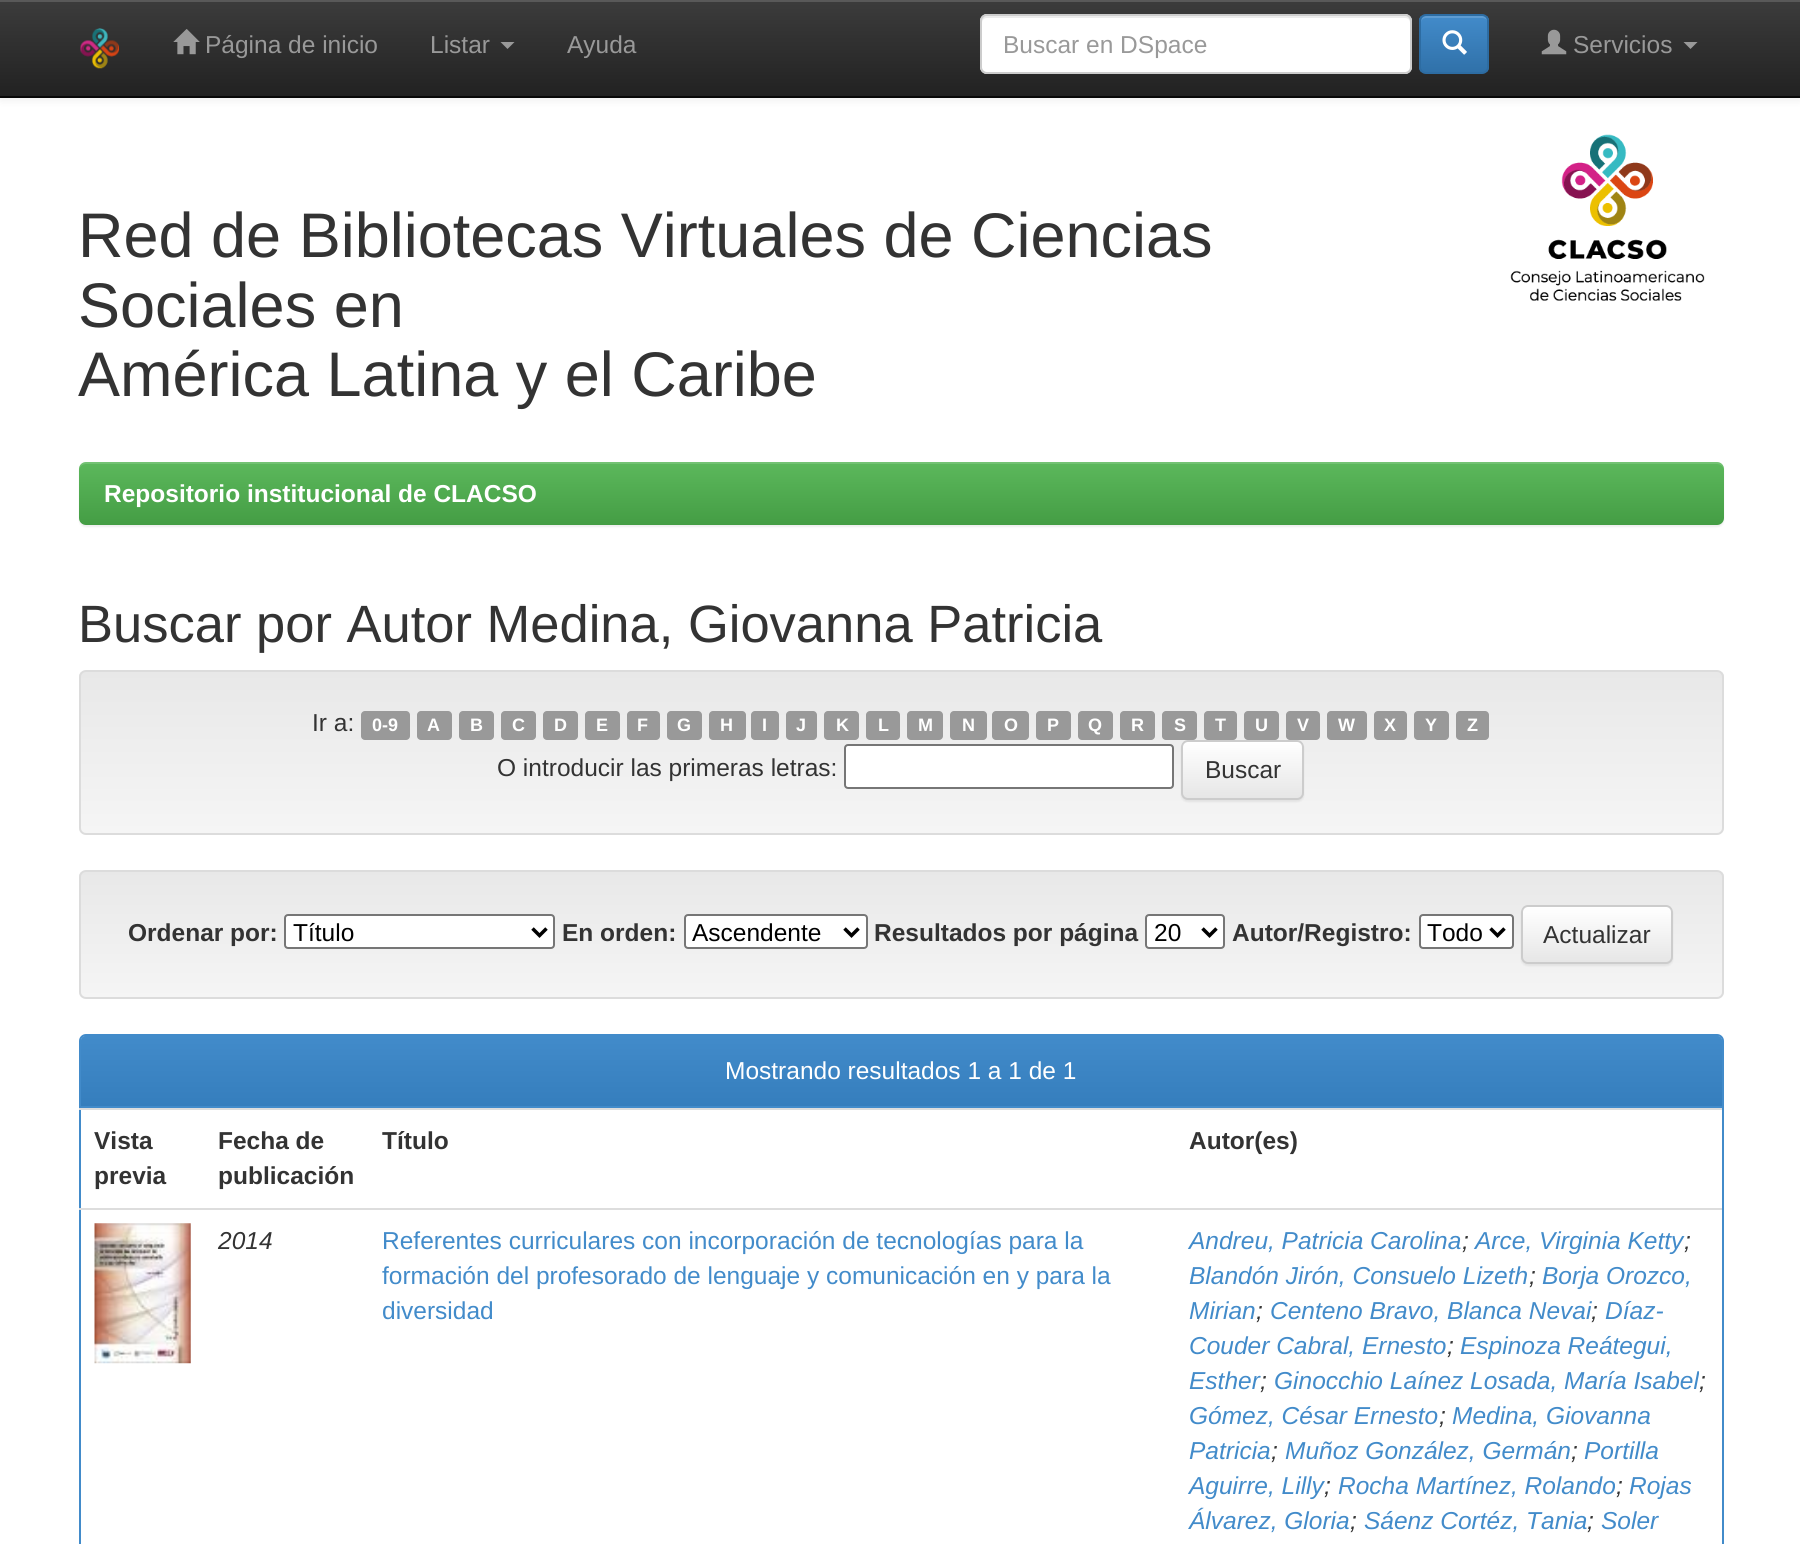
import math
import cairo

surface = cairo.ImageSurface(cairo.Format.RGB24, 1800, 1544)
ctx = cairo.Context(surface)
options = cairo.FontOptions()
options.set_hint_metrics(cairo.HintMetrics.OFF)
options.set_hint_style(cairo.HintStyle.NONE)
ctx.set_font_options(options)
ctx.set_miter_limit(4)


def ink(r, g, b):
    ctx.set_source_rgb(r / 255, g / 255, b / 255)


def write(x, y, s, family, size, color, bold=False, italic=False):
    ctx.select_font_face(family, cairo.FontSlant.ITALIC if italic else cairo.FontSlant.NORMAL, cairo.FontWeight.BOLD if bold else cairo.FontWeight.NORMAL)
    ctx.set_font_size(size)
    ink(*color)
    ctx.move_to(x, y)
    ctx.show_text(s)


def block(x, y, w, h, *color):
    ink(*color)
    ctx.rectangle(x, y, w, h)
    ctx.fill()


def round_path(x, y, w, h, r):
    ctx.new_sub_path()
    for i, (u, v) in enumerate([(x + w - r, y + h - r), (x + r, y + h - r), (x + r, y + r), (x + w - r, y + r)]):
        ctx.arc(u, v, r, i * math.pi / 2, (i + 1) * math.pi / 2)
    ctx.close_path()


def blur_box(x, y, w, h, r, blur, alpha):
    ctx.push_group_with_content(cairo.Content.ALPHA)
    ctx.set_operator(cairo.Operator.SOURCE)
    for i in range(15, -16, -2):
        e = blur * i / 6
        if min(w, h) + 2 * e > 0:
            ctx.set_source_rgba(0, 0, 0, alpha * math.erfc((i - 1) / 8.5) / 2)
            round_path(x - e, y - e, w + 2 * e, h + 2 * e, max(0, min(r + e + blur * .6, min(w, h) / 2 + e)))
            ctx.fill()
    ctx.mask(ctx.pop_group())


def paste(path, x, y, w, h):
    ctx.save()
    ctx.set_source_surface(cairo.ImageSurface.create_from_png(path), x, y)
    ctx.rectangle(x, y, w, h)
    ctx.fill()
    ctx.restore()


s1 = dict(family="Liberation Sans", size=24.5, color=(153, 153, 153))
s2 = dict(family="Liberation Sans", size=63, color=(51, 51, 51))
s3 = dict(family="Liberation Sans", size=24.5, color=(255, 255, 255), bold=True)
s4 = dict(family="Liberation Sans", size=52.5, color=(51, 51, 51))
s5 = dict(family="Liberation Sans", size=24.5, color=(51, 51, 51))
s6 = dict(family="Liberation Sans", size=18, color=(255, 255, 255), bold=True)
s7 = dict(family="Liberation Sans", size=24.5, color=(51, 51, 51), bold=True)
s8 = dict(family="Liberation Sans", size=24.5, color=(0, 0, 0))
s9 = dict(family="Liberation Sans", size=24.5, color=(255, 255, 255))
s10 = dict(family="Liberation Sans", size=24.5, color=(51, 51, 51), italic=True)
s11 = dict(family="Liberation Sans", size=24.5, color=(66, 139, 202))
s12 = dict(family="Liberation Sans", size=24.5, color=(66, 139, 202), italic=True)

ink(255, 255, 255)
ctx.paint()
ink(0, 0, 0)
blur_box(0, 2, 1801, 98, 0, 4.5, 0.07)
gradient = cairo.LinearGradient(900, 0, 900, 96)
gradient.add_color_stop_rgba(0, 0.235, 0.235, 0.235, 1)
gradient.add_color_stop_rgba(1, 0.133, 0.133, 0.133, 1)
ctx.set_source(gradient)
ctx.rectangle(0, 2, 1800, 94)
ctx.fill()
block(0, 0, 1800, 2, 89, 89, 89)
block(0, 96, 1800, 2, 8, 8, 8)
paste("pic1.png", 80, 28, 39, 41)
paste("pic2.png", 173, 29, 27, 26)
write(205, 53, "Página de inicio", **s1)
write(430, 53, "Listar", **s1)
ctx.new_path()
ctx.move_to(500.5, 42)
ctx.line_to(514.5, 42)
ctx.line_to(507.5, 49)
ctx.close_path()
ctx.fill()
write(567, 53, "Ayuda", **s1)
ink(255, 255, 255)
round_path(980, 14, 432, 60, 7)
ctx.fill()
ink(236, 236, 236)
ctx.new_path()
ctx.move_to(987, 18)
ctx.line_to(1405, 18)
ctx.curve_to(1408, 18, 1410, 20, 1410, 23)
ctx.line_to(1410, 68)
ctx.line_to(1410, 71)
ctx.curve_to(1410, 70, 1411, 68, 1411, 67)
ctx.line_to(1411, 21)
ctx.curve_to(1411, 18, 1409, 16, 1406, 16)
ctx.line_to(987, 16)
ctx.curve_to(984, 16, 982, 18, 982, 21)
ctx.line_to(982, 23)
ctx.curve_to(982, 20, 984, 18, 987, 18)
ctx.close_path()
ctx.fill()
round_path(981, 15, 430, 58, 6)
ink(204, 204, 204)
ctx.stroke()
write(1003, 53, "Buscar en DSpace", **s1)
ctx.save()
round_path(1419, 14, 70, 60, 7)
ctx.clip()
gradient = cairo.LinearGradient(1454, 16, 1454, 72)
gradient.add_color_stop_rgba(0, 0.259, 0.545, 0.792, 1)
gradient.add_color_stop_rgba(1, 0.188, 0.443, 0.663, 1)
ctx.set_source(gradient)
ctx.rectangle(1419, 16, 70, 56)
ctx.fill()
ctx.restore()
ctx.set_source_rgba(1, 1, 1, 0.15)
ctx.new_path()
ctx.move_to(1426, 18)
ctx.line_to(1482, 18)
ctx.curve_to(1485, 18, 1488, 20, 1488, 23)
ctx.curve_to(1488, 14, 1481, 16, 1474, 16)
ctx.line_to(1436, 16)
ctx.curve_to(1428, 16, 1421, 14, 1421, 23)
ctx.curve_to(1421, 20, 1423, 18, 1426, 18)
ctx.close_path()
ctx.fill()
round_path(1420, 15, 68, 58, 6)
ink(45, 108, 162)
ctx.stroke()
paste("pic3.png", 1442, 30, 25, 25)
paste("pic4.png", 1541, 29, 26, 26)
write(1573, 53, "Servicios", **s1)
ctx.new_path()
ctx.move_to(1683.5, 42)
ctx.line_to(1697.5, 42)
ctx.line_to(1690.5, 49)
ctx.close_path()
ctx.fill()
write(78, 257, "Red de Bibliotecas Virtuales de Ciencias", **s2)
write(78, 327, "Sociales en", **s2)
write(78, 396, "América Latina y el Caribe", **s2)
paste("pic5.png", 1510, 134, 195, 167)
ink(0, 0, 0)
blur_box(79, 464, 1645, 63, 7, 1, 0.07)
gradient = cairo.LinearGradient(901, 462, 901, 525)
gradient.add_color_stop_rgba(0, 0.361, 0.722, 0.361, 1)
gradient.add_color_stop_rgba(1, 0.267, 0.616, 0.267, 1)
ctx.set_source(gradient)
round_path(79, 462, 1645, 63, 7)
ctx.fill()
ctx.set_source_rgba(1, 1, 1, 0.15)
ctx.new_path()
ctx.move_to(86, 464)
ctx.line_to(1717, 464)
ctx.curve_to(1721, 464, 1724, 467, 1724, 471)
ctx.curve_to(1724, 467, 1722, 462, 1717, 462)
ctx.line_to(86, 462)
ctx.curve_to(81, 462, 79, 467, 79, 471)
ctx.curve_to(79, 467, 82, 464, 86, 464)
ctx.close_path()
ctx.fill()
write(104, 502, "Repositorio institucional de CLACSO", **s3)
write(78, 642, "Buscar por Autor Medina, Giovanna Patricia", **s4)
ctx.save()
round_path(79, 670, 1645, 165, 7)
ctx.clip()
gradient = cairo.LinearGradient(901, 672, 901, 833)
gradient.add_color_stop_rgba(0, 0.91, 0.91, 0.91, 1)
gradient.add_color_stop_rgba(1, 0.961, 0.961, 0.961, 1)
ctx.set_source(gradient)
ctx.rectangle(79, 672, 1645, 161)
ctx.fill()
ctx.restore()
round_path(80, 671, 1643, 163, 6)
ink(220, 220, 220)
ctx.stroke()
write(312, 731, "Ir a:", **s5)
ink(153, 153, 153)
round_path(361, 711, 49, 29, 4)
ctx.fill()
write(372, 731, "0-9", **s6)
ink(153, 153, 153)
round_path(417, 711, 35, 29, 4)
ctx.fill()
write(427, 731, "A", **s6)
ink(153, 153, 153)
round_path(459, 711, 35, 29, 4)
ctx.fill()
write(470, 731, "B", **s6)
ink(153, 153, 153)
round_path(501, 711, 35, 29, 4)
ctx.fill()
write(512, 731, "C", **s6)
ink(153, 153, 153)
round_path(543, 711, 35, 29, 4)
ctx.fill()
write(554, 731, "D", **s6)
ink(153, 153, 153)
round_path(585, 711, 35, 29, 4)
ctx.fill()
write(596, 731, "E", **s6)
ink(153, 153, 153)
round_path(627, 711, 33, 29, 4)
ctx.fill()
write(637, 731, "F", **s6)
ink(153, 153, 153)
round_path(667, 711, 35, 29, 4)
ctx.fill()
write(677, 731, "G", **s6)
ink(153, 153, 153)
round_path(709, 711, 37, 29, 4)
ctx.fill()
write(720, 731, "H", **s6)
ink(153, 153, 153)
round_path(751, 711, 28, 29, 4)
ctx.fill()
write(762, 731, "I", **s6)
ink(153, 153, 153)
round_path(786, 711, 31, 29, 4)
ctx.fill()
write(796, 731, "J", **s6)
ink(153, 153, 153)
round_path(824, 711, 35, 29, 4)
ctx.fill()
write(836, 731, "K", **s6)
ink(153, 153, 153)
round_path(866, 711, 34, 29, 4)
ctx.fill()
write(878, 731, "L", **s6)
ink(153, 153, 153)
round_path(907, 711, 36, 29, 4)
ctx.fill()
write(918, 731, "M", **s6)
ink(153, 153, 153)
round_path(950, 711, 37, 29, 4)
ctx.fill()
write(962, 731, "N", **s6)
ink(153, 153, 153)
round_path(992, 711, 37, 29, 4)
ctx.fill()
write(1004, 731, "O", **s6)
ink(153, 153, 153)
round_path(1036, 711, 35, 29, 4)
ctx.fill()
write(1047, 731, "P", **s6)
ink(153, 153, 153)
round_path(1078, 711, 35, 29, 4)
ctx.fill()
write(1088, 731, "Q", **s6)
ink(153, 153, 153)
round_path(1120, 711, 35, 29, 4)
ctx.fill()
write(1131, 731, "R", **s6)
ink(153, 153, 153)
round_path(1162, 711, 35, 29, 4)
ctx.fill()
write(1174, 731, "S", **s6)
ink(153, 153, 153)
round_path(1204, 711, 33, 29, 4)
ctx.fill()
write(1215, 731, "T", **s6)
ink(153, 153, 153)
round_path(1244, 711, 35, 29, 4)
ctx.fill()
write(1255, 731, "U", **s6)
ink(153, 153, 153)
round_path(1286, 711, 34, 29, 4)
ctx.fill()
write(1297, 731, "V", **s6)
ink(153, 153, 153)
round_path(1327, 711, 40, 29, 4)
ctx.fill()
write(1338, 731, "W", **s6)
ink(153, 153, 153)
round_path(1374, 711, 33, 29, 4)
ctx.fill()
write(1384, 731, "X", **s6)
ink(153, 153, 153)
round_path(1414, 711, 35, 29, 4)
ctx.fill()
write(1425, 731, "Y", **s6)
ink(153, 153, 153)
round_path(1456, 711, 33, 29, 4)
ctx.fill()
write(1467, 731, "Z", **s6)
write(497, 776, "O introducir las primeras letras:", **s5)
ink(255, 255, 255)
round_path(845, 745, 328, 43, 3)
ctx.fill_preserve()
ink(118, 118, 118)
ctx.stroke()
ink(0, 0, 0)
blur_box(1181, 742, 123, 60, 7, 1, 0.07)
ctx.save()
round_path(1181, 740, 123, 60, 7)
ctx.clip()
gradient = cairo.LinearGradient(1243, 742, 1243, 798)
gradient.add_color_stop_rgba(0, 1, 1, 1, 1)
gradient.add_color_stop_rgba(1, 0.902, 0.902, 0.902, 1)
ctx.set_source(gradient)
ctx.rectangle(1181, 742, 123, 56)
ctx.fill()
ctx.restore()
round_path(1182, 741, 121, 58, 6)
ink(204, 204, 204)
ctx.stroke()
write(1205, 778, "Buscar", **s5)
ctx.save()
round_path(79, 870, 1645, 129, 7)
ctx.clip()
gradient = cairo.LinearGradient(901, 871, 901, 998)
gradient.add_color_stop_rgba(0, 0.91, 0.91, 0.91, 1)
gradient.add_color_stop_rgba(1, 0.961, 0.961, 0.961, 1)
ctx.set_source(gradient)
ctx.rectangle(79, 872, 1645, 126)
ctx.fill()
ctx.restore()
round_path(80, 871, 1643, 127, 6)
ink(220, 220, 220)
ctx.stroke()
write(128, 941, "Ordenar por:", **s7)
ink(255, 255, 255)
round_path(285, 915, 269, 33, 3)
ctx.fill_preserve()
ink(118, 118, 118)
ctx.stroke()
ctx.new_path()
ctx.move_to(532.5, 928.5)
ctx.line_to(539.5, 935.5)
ctx.line_to(546.5, 928.5)
ink(0, 0, 0)
ctx.set_line_width(3.5)
ctx.stroke()
write(293, 941, "Título", **s8)
write(562, 941, "En orden:", **s7)
ink(255, 255, 255)
round_path(685, 915, 182, 33, 3)
ctx.fill_preserve()
ink(118, 118, 118)
ctx.set_line_width(2)
ctx.stroke()
ctx.new_path()
ctx.move_to(844.5, 928.5)
ctx.line_to(851.5, 935.5)
ctx.line_to(858.5, 928.5)
ink(0, 0, 0)
ctx.set_line_width(3.5)
ctx.stroke()
write(692, 941, "Ascendente", **s8)
write(874, 941, "Resultados por página", **s7)
ink(255, 255, 255)
round_path(1146, 915, 78, 33, 3)
ctx.fill_preserve()
ink(118, 118, 118)
ctx.set_line_width(2)
ctx.stroke()
ctx.new_path()
ctx.move_to(1202.5, 928.5)
ctx.line_to(1209.5, 935.5)
ctx.line_to(1216.5, 928.5)
ink(0, 0, 0)
ctx.set_line_width(3.5)
ctx.stroke()
write(1154, 941, "20", **s8)
write(1232, 941, "Autor/Registro:", **s7)
ink(255, 255, 255)
round_path(1420, 915, 93, 33, 3)
ctx.fill_preserve()
ink(118, 118, 118)
ctx.set_line_width(2)
ctx.stroke()
ctx.new_path()
ctx.move_to(1490.5, 928.5)
ctx.line_to(1497.5, 935.5)
ctx.line_to(1504.5, 928.5)
ink(0, 0, 0)
ctx.set_line_width(3.5)
ctx.stroke()
write(1427, 941, "Todo", **s8)
ink(0, 0, 0)
blur_box(1521, 907, 152, 59, 7, 1, 0.07)
ctx.save()
round_path(1521, 905, 152, 59, 7)
ctx.clip()
gradient = cairo.LinearGradient(1597, 907, 1597, 963)
gradient.add_color_stop_rgba(0, 1, 1, 1, 1)
gradient.add_color_stop_rgba(1, 0.902, 0.902, 0.902, 1)
ctx.set_source(gradient)
ctx.rectangle(1521, 907, 152, 56)
ctx.fill()
ctx.restore()
round_path(1522, 906, 150, 57, 6)
ink(204, 204, 204)
ctx.set_line_width(2)
ctx.stroke()
write(1543, 943, "Actualizar", **s5)
round_path(80, 1035, 1643, 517, 6)
ink(66, 139, 202)
ctx.stroke()
ctx.new_path()
ctx.move_to(86, 1036)
ctx.line_to(1717, 1036)
ctx.curve_to(1720, 1036, 1722, 1038, 1722, 1041)
ctx.line_to(1722, 1108)
ctx.line_to(81, 1108)
ctx.line_to(81, 1041)
ctx.curve_to(81, 1038, 83, 1036, 86, 1036)
ctx.close_path()
ctx.fill()
gradient = cairo.LinearGradient(901, 1036, 901, 1106)
gradient.add_color_stop_rgba(0, 0.259, 0.545, 0.792, 1)
gradient.add_color_stop_rgba(1, 0.208, 0.494, 0.741, 1)
ctx.set_source(gradient)
ctx.new_path()
ctx.move_to(86, 1036)
ctx.line_to(1717, 1036)
ctx.curve_to(1720, 1036, 1722, 1038, 1722, 1041)
ctx.line_to(1722, 1106)
ctx.line_to(81, 1106)
ctx.line_to(81, 1041)
ctx.curve_to(81, 1038, 83, 1036, 86, 1036)
ctx.close_path()
ctx.fill()
write(725, 1079, "Mostrando resultados 1 a 1 de 1", **s9)
write(94, 1149, "Vista", **s7)
write(94, 1184, "previa", **s7)
write(218, 1149, "Fecha de", **s7)
write(218, 1184, "publicación", **s7)
write(382, 1149, "Título", **s7)
block(79, 1108, 1643, 2, 221, 221, 221)
write(1189, 1149, "Autor(es)", **s7)
paste("pic6.png", 94, 1223, 97, 141)
write(218, 1249, "2014", **s10)
write(382, 1249, "Referentes curriculares con incorporación de tecnologías para la", **s11)
write(382, 1284, "formación del profesorado de lenguaje y comunicación en y para la", **s11)
write(382, 1319, "diversidad", **s11)
block(79, 1208, 1643, 2, 221, 221, 221)
write(1189, 1249, "Andreu, Patricia Carolina", **s12)
write(1462, 1249, ";", **s10)
write(1475, 1249, "Arce, Virginia Ketty", **s12)
write(1684, 1249, ";", **s10)
write(1189, 1284, "Blandón Jirón, Consuelo Lizeth", **s12)
write(1529, 1284, ";", **s10)
write(1542, 1284, "Borja Orozco,", **s12)
write(1189, 1319, "Mirian", **s12)
write(1256, 1319, ";", **s10)
write(1270, 1319, "Centeno Bravo, Blanca Nevai", **s12)
write(1591, 1319, ";", **s10)
write(1605, 1319, "Díaz-", **s12)
write(1189, 1354, "Couder Cabral, Ernesto", **s12)
write(1447, 1354, ";", **s10)
write(1460, 1354, "Espinoza Reátegui,", **s12)
write(1189, 1389, "Esther", **s12)
write(1260, 1389, ";", **s10)
write(1274, 1389, "Ginocchio Laínez Losada, María Isabel", **s12)
write(1699, 1389, ";", **s10)
write(1189, 1424, "Gómez, César Ernesto", **s12)
write(1439, 1424, ";", **s10)
write(1452, 1424, "Medina, Giovanna", **s12)
write(1189, 1459, "Patricia", **s12)
write(1271, 1459, ";", **s10)
write(1285, 1459, "Muñoz González, Germán", **s12)
write(1571, 1459, ";", **s10)
write(1584, 1459, "Portilla", **s12)
write(1189, 1494, "Aguirre, Lilly", **s12)
write(1324, 1494, ";", **s10)
write(1338, 1494, "Rocha Martínez, Rolando", **s12)
write(1616, 1494, ";", **s10)
write(1629, 1494, "Rojas", **s12)
write(1189, 1529, "Álvarez, Gloria", **s12)
write(1350, 1529, ";", **s10)
write(1364, 1529, "Sáenz Cortéz, Tania", **s12)
write(1587, 1529, ";", **s10)
write(1601, 1529, "Soler", **s12)
surface.write_to_png("screenshot.png")
